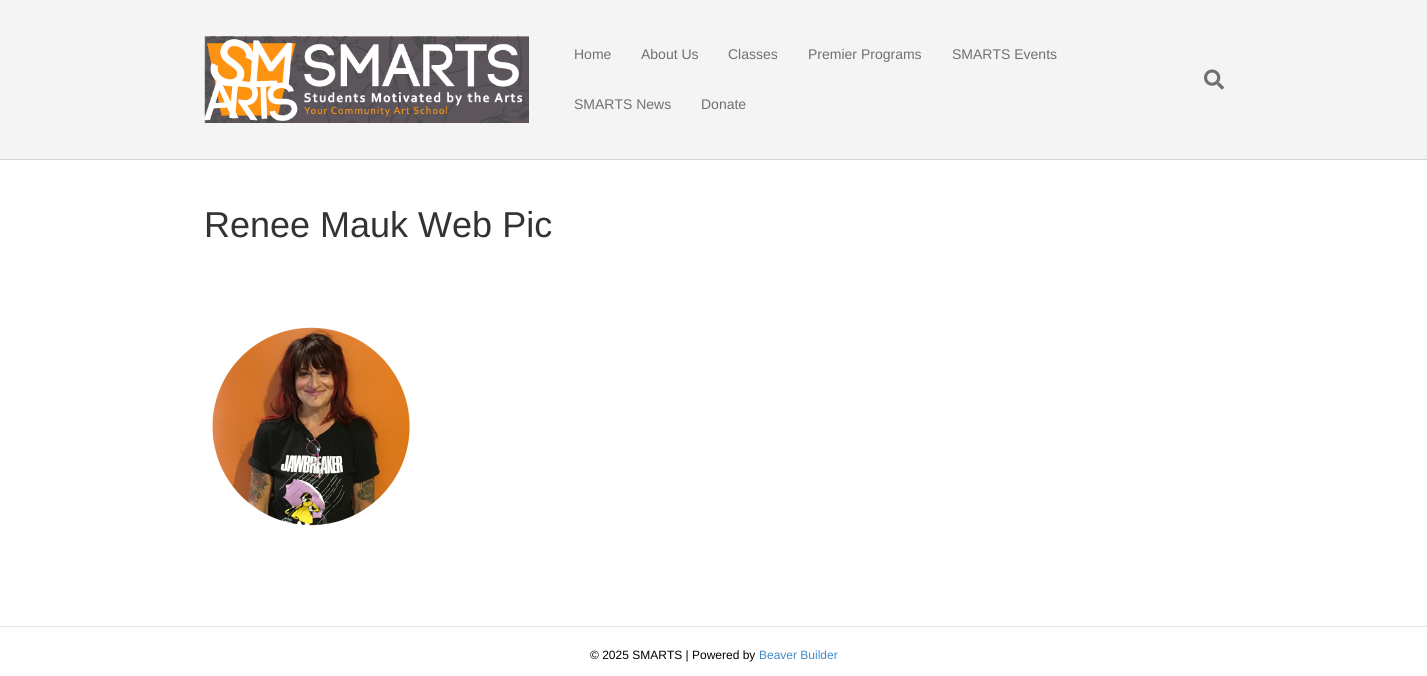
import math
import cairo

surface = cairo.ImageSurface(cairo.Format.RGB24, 1427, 676)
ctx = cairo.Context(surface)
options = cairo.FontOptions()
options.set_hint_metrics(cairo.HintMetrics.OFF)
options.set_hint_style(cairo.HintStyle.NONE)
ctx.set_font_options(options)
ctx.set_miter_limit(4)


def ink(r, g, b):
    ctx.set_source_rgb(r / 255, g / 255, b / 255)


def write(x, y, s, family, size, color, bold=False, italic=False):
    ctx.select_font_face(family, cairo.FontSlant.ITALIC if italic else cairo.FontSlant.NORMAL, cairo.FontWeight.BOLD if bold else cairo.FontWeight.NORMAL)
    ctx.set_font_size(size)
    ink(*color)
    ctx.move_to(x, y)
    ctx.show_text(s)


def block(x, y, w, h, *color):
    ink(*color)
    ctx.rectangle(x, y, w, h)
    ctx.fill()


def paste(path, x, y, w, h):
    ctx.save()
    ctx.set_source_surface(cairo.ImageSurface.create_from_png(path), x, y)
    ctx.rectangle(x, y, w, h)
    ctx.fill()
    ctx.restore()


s1 = dict(family="Liberation Sans", size=14, color=(112, 112, 112))
s2 = dict(family="Liberation Sans", size=36, color=(51, 51, 51))
s3 = dict(family="Liberation Sans", size=12, color=(0, 0, 0))
s4 = dict(family="Liberation Sans", size=12, color=(66, 139, 202))

ink(244, 244, 244)
ctx.paint()
block(0, 159, 1427, 1, 212, 212, 212)
paste("pic1.png", 204, 36, 325, 87)
write(574, 59, "Home", **s1)
write(641, 59, "About Us", **s1)
write(728, 59, "Classes", **s1)
write(808, 59, "Premier Programs", **s1)
write(952, 59, "SMARTS Events", **s1)
write(574, 109, "SMARTS News", **s1)
write(701, 109, "Donate", **s1)
paste("pic2.png", 1204, 69, 20, 21)
block(0, 160, 1427, 466, 255, 255, 255)
write(204, 237, "Renee Mauk Web Pic", **s2)
paste("pic3.png", 212, 327, 198, 199)
block(0, 627, 1427, 49, 255, 255, 255)
block(0, 626, 1427, 1, 230, 230, 230)
write(590, 659, "© 2025 SMARTS | Powered by", **s3)
write(759, 659, "Beaver Builder", **s4)
surface.write_to_png("screenshot.png")
